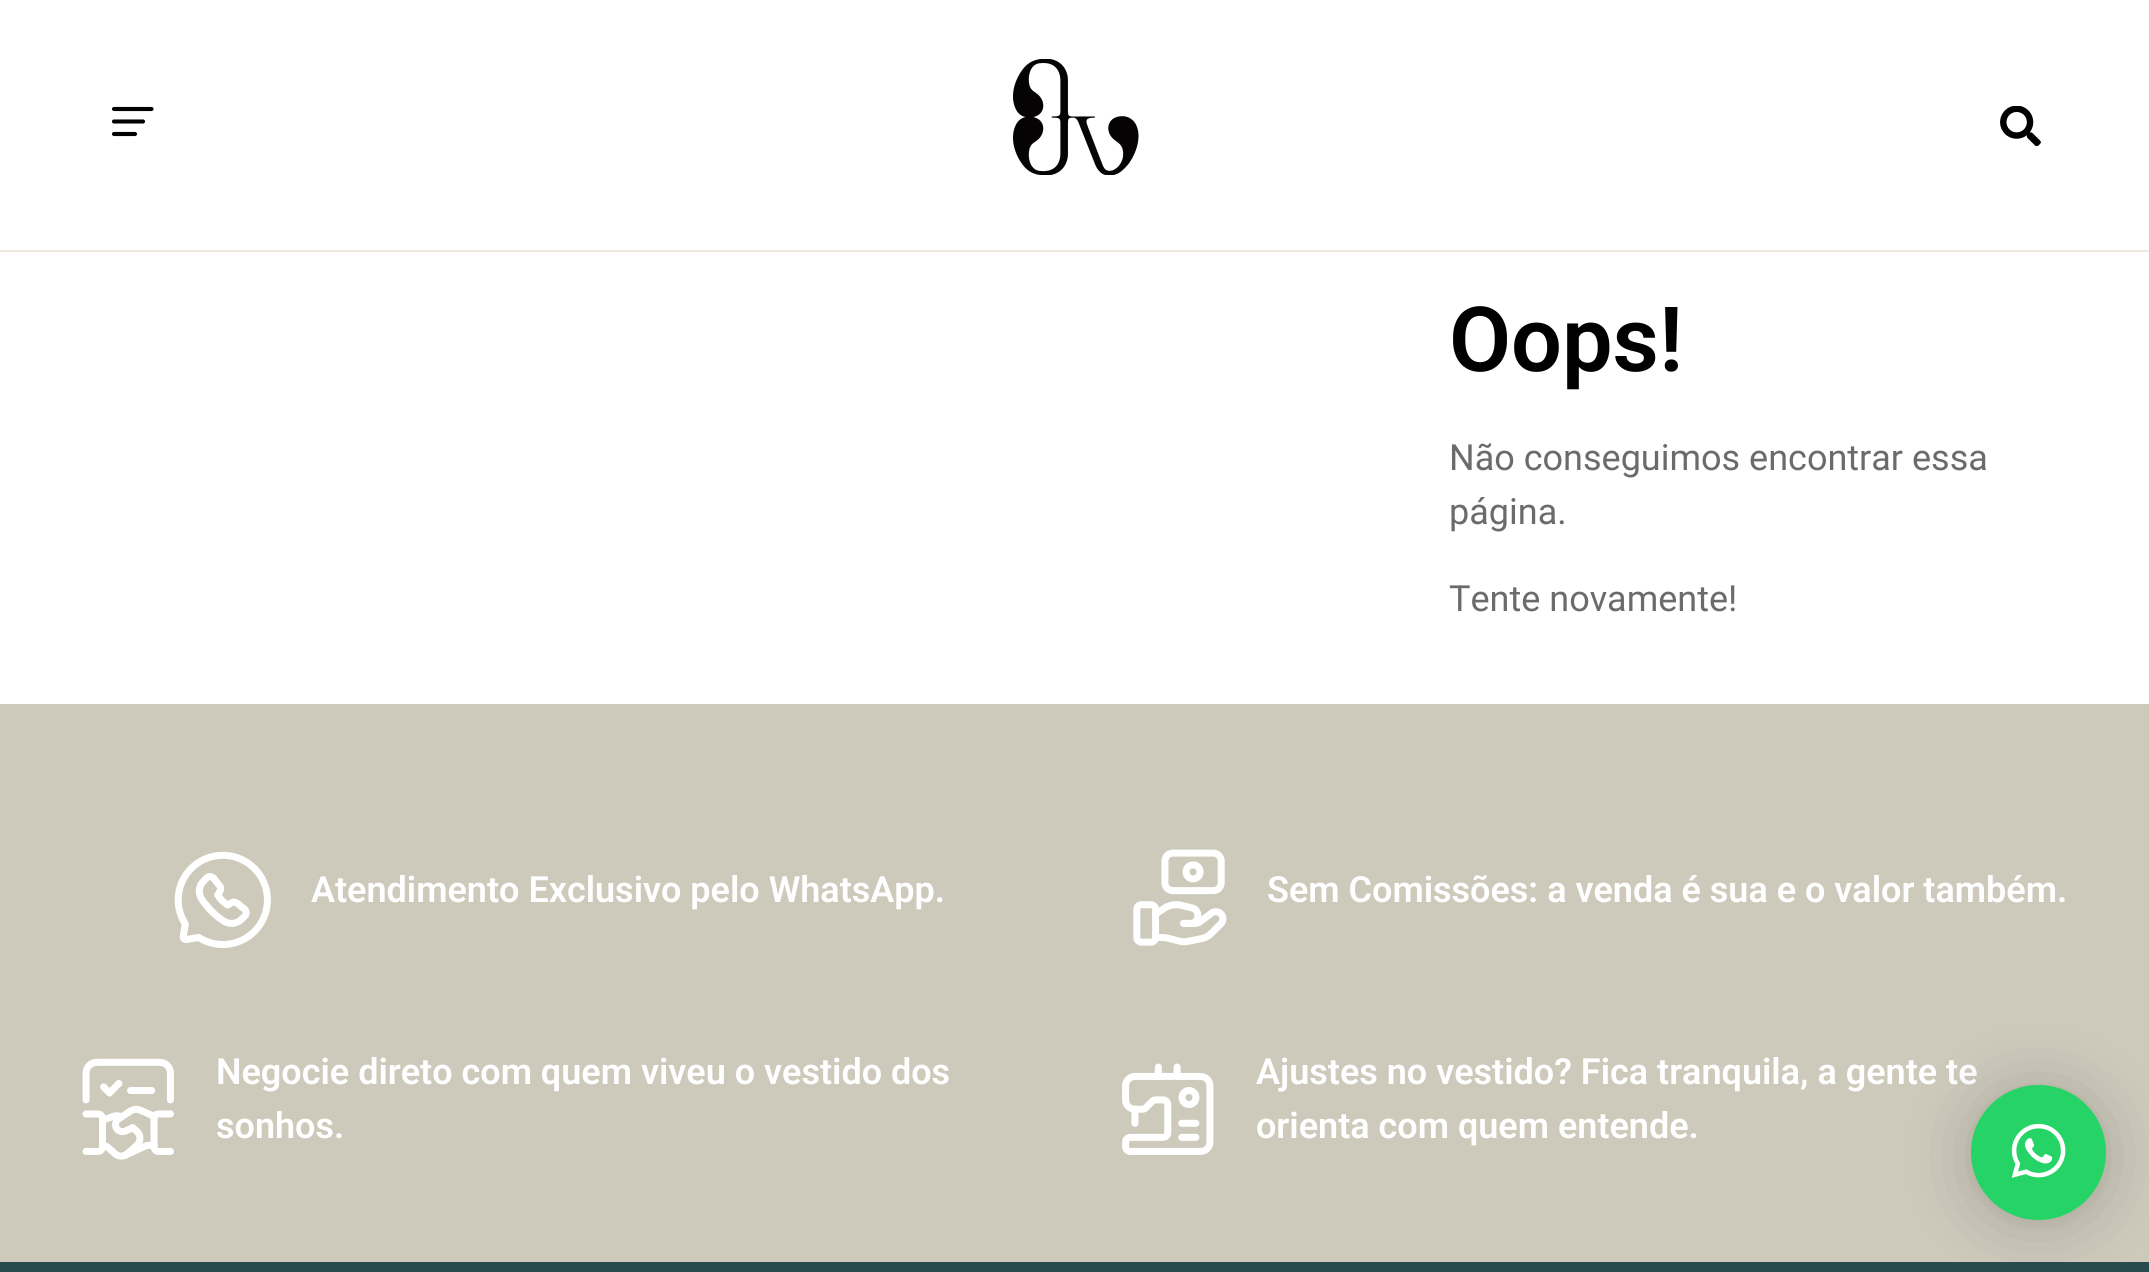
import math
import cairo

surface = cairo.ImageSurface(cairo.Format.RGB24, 2149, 1272)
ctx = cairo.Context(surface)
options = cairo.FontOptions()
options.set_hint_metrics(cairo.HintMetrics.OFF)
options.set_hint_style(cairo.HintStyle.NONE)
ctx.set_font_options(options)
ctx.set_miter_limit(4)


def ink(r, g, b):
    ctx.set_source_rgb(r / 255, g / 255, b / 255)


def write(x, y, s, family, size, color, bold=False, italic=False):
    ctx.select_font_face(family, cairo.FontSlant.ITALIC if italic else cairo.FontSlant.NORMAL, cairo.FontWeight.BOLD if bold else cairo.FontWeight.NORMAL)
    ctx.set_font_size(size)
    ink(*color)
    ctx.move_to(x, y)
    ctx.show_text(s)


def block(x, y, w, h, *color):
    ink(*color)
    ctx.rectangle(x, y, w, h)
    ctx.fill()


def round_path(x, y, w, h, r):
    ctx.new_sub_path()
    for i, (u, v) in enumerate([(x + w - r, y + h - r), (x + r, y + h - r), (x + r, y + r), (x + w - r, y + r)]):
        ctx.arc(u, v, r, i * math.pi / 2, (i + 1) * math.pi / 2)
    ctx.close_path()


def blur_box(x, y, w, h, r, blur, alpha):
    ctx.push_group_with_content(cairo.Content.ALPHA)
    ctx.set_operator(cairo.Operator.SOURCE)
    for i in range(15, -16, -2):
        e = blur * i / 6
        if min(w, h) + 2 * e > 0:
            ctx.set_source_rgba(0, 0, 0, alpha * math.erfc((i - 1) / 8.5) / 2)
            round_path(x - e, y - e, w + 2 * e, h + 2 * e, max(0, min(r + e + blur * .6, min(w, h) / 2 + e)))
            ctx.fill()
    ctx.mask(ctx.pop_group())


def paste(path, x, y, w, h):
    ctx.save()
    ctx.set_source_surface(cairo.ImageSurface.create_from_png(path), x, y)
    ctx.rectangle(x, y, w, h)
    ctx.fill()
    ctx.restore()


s1 = dict(family="Roboto SemiBold", size=90, color=(0, 0, 0))
s2 = dict(family="Roboto", size=36, color=(107, 107, 107))
s3 = dict(family="Roboto SemiBold", size=36, color=(255, 255, 255))

ink(255, 255, 255)
ctx.paint()
block(0, 250, 2149, 2, 240, 232, 221)
ctx.new_path()
ctx.move_to(114, 109)
ctx.line_to(151.5, 109)
ctx.move_to(143, 121.5)
ctx.line_to(114, 121.5)
ctx.move_to(114, 134)
ctx.line_to(135, 134)
ink(0, 0, 0)
ctx.set_line_width(4.1)
ctx.set_line_cap(cairo.LineCap.ROUND)
ctx.set_line_join(cairo.LineJoin.ROUND)
ctx.stroke()
paste("pic1.png", 1013, 59, 126, 116)
paste("pic2.png", 2000, 106, 41, 40)
write(1449, 371, "Oops!", **s1)
write(1449, 470, "Não conseguimos encontrar essa", **s2)
write(1449, 524, "página.", **s2)
write(1449, 611, "Tente novamente!", **s2)
block(0, 704, 2149, 558, 205, 202, 188)
paste("pic3.png", 174, 851, 97, 97)
write(311, 902, "Atendimento Exclusivo pelo WhatsApp.", **s3)
paste("pic4.png", 1133, 849, 94, 97)
write(1267, 902, "Sem Comissões: a venda é sua e o valor também.", **s3)
paste("pic5.png", 82, 1058, 92, 102)
write(216, 1084, "Negocie direto com quem viveu o vestido dos", **s3)
write(216, 1138, "sonhos.", **s3)
paste("pic6.png", 1122, 1063, 92, 92)
write(1256, 1084, "Ajustes no vestido? Fica tranquila, a gente te", **s3)
write(1256, 1138, "orienta com quem entende.", **s3)
block(0, 1262, 2149, 10, 40, 76, 78)
ink(0, 0, 0)
blur_box(1971, 1089, 135, 135, 67.5, 36, 0.16)
blur_box(1971, 1087, 135, 135, 67.5, 7, 0.06)
ink(37, 211, 102)
ctx.arc(2038.5, 1152.5, 67.5, 0, 2 * math.pi)
ctx.fill()
paste("pic7.png", 2011, 1123, 55, 55)
surface.write_to_png("screenshot.png")
